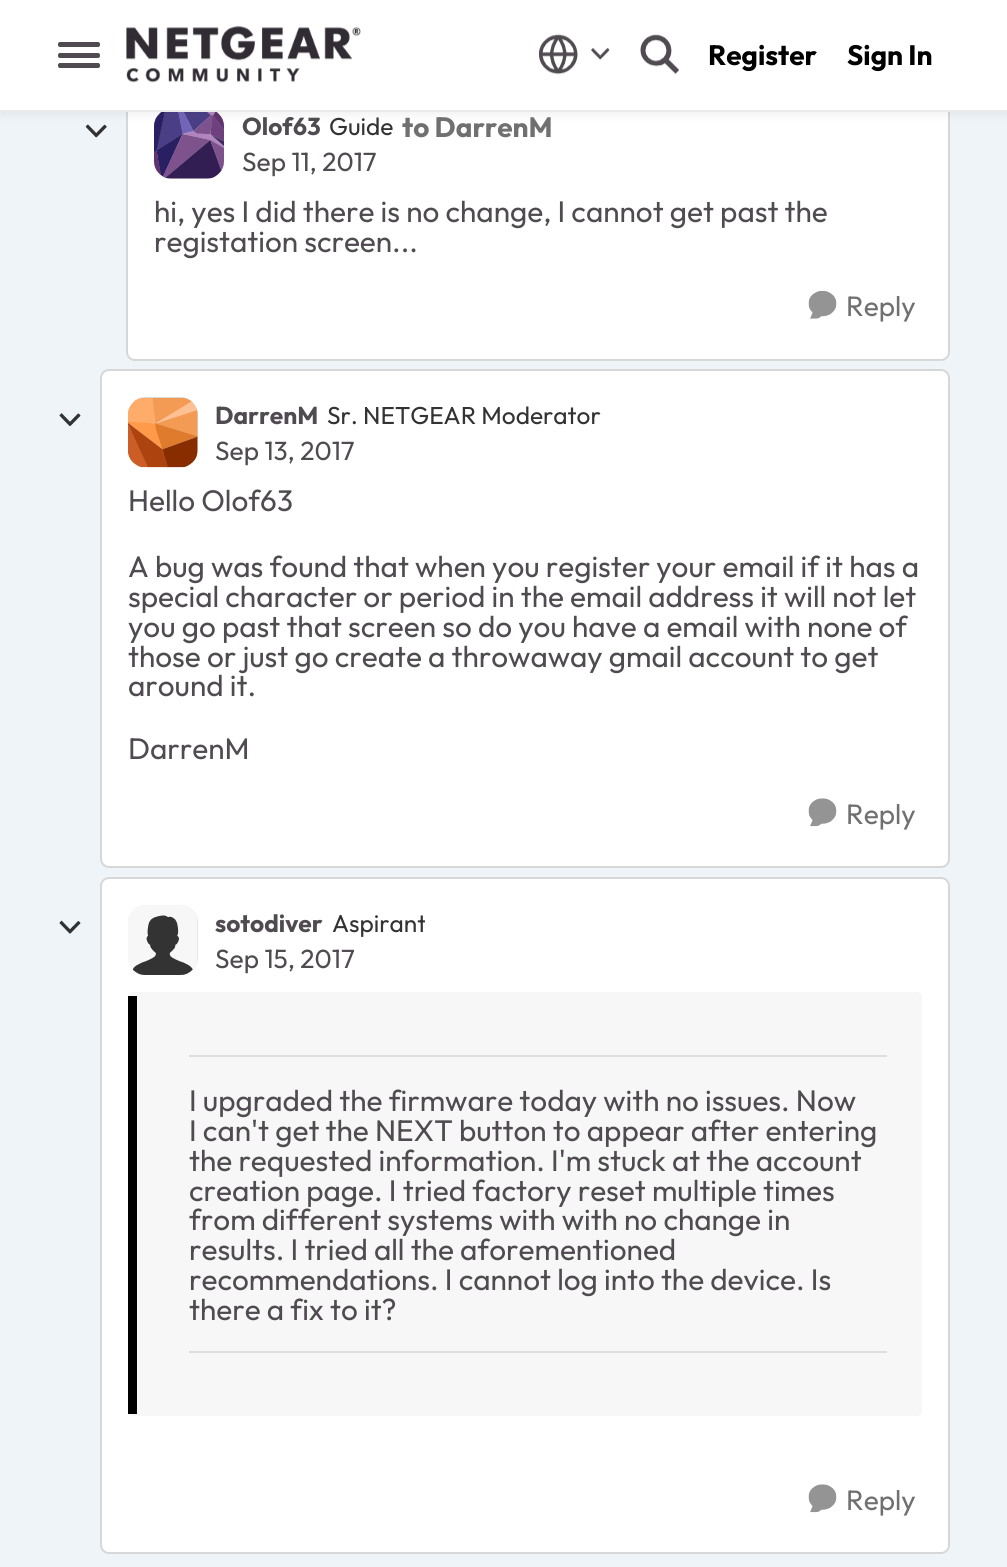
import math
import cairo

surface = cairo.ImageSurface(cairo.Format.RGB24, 1007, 1567)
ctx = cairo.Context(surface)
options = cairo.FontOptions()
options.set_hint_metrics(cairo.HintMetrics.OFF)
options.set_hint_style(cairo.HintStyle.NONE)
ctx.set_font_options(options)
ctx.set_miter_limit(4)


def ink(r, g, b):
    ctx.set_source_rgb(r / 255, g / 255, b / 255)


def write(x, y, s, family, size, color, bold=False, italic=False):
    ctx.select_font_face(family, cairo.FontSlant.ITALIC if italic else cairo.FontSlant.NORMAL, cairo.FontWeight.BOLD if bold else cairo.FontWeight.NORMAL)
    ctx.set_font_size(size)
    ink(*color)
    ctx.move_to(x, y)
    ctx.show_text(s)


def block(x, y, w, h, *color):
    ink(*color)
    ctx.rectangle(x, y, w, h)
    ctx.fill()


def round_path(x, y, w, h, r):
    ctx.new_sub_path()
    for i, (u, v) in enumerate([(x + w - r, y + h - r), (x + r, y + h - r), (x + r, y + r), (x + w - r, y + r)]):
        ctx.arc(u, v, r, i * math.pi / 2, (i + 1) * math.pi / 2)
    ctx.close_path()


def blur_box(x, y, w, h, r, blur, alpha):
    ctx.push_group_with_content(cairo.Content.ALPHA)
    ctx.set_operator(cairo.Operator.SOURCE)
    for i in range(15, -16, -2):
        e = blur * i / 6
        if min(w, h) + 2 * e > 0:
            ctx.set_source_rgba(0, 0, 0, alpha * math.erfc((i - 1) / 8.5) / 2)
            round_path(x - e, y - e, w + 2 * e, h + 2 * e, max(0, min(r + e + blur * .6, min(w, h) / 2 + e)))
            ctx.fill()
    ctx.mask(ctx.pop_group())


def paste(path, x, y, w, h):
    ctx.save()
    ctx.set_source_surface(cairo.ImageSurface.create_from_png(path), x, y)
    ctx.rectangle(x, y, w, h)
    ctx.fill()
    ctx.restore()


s1 = dict(family="Outfit", size=28, color=(0, 0, 0), bold=True)
s2 = dict(family="Outfit", size=24.5, color=(80, 75, 81), bold=True)
s3 = dict(family="Outfit", size=24.5, color=(51, 51, 51))
s4 = dict(family="Outfit", size=28, color=(112, 112, 112), bold=True)
s5 = dict(family="Outfit", size=26.25, color=(80, 75, 81))
s6 = dict(family="Outfit", size=29.75, color=(80, 75, 81))
s7 = dict(family="Outfit", size=28, color=(112, 112, 112))

ink(239, 244, 249)
ctx.paint()
paste("pic5.png", 85, 124, 22, 14)
ink(255, 255, 255)
round_path(126, 81, 824, 280, 9)
ctx.fill()
round_path(127, 82, 822, 278, 8)
ctx.set_source_rgba(0, 0, 0, 0.16)
ctx.stroke()
ink(217, 217, 217)
round_path(154, 109, 70, 70, 18)
ctx.fill()
paste("pic6.png", 154, 112, 70, 67)
ink(51, 51, 51)
blur_box(0, 4, 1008, 112, 0, 3.5, 0.06)
block(0, 0, 1007, 110, 255, 255, 255)
block(0, 110, 1007, 2, 235, 235, 235)
ink(80, 75, 81)
round_path(58, 42, 42, 5, 2)
ctx.fill()
round_path(58, 53, 42, 5, 2)
ctx.fill()
round_path(58, 63, 42, 5, 2)
ctx.fill()
paste("pic1.png", 126, 26, 235, 57)
paste("pic2.png", 539, 34, 39, 41)
paste("pic3.png", 591, 48, 19, 12)
paste("pic4.png", 640, 34, 39, 41)
write(708, 65, "Register", **s1)
write(847, 65, "Sign In", **s1)
write(242, 135, "Olof63", **s2)
write(329, 135, "Guide", **s3)
write(402, 137, "to DarrenM", **s4)
write(242, 171, "Sep 11, 2017", **s5)
write(154, 222, "hi, yes I did there is no change, I cannot get past the", **s6)
write(154, 252, "registation screen...", **s6)
paste("pic7.png", 808, 290, 29, 29)
write(846, 316, "Reply", **s7)
paste("pic8.png", 59, 413, 22, 13)
ink(255, 255, 255)
round_path(100, 369, 850, 499, 9)
ctx.fill()
round_path(101, 370, 848, 497, 8)
ctx.set_source_rgba(0, 0, 0, 0.16)
ctx.stroke()
ink(217, 217, 217)
round_path(128, 397, 70, 70, 18)
ctx.fill()
paste("pic9.png", 128, 398, 70, 70)
write(215, 424, "DarrenM", **s2)
write(327, 424, "Sr. NETGEAR Moderator", **s3)
write(215, 460, "Sep 13, 2017", **s5)
write(128, 511, "Hello Olof63", **s6)
write(128, 577, "A bug was found that when you register your email if it has a", **s6)
write(128, 607, "special character or period in the email address it will not let", **s6)
write(128, 637, "you go past that screen so do you have a email with none of", **s6)
write(128, 667, "those or just go create a throwaway gmail account to get", **s6)
write(128, 696, "around it.", **s6)
write(128, 759, "DarrenM", **s6)
paste("pic10.png", 808, 798, 29, 29)
write(846, 824, "Reply", **s7)
paste("pic11.png", 59, 920, 22, 14)
ink(255, 255, 255)
round_path(100, 877, 850, 677, 9)
ctx.fill()
round_path(101, 878, 848, 675, 8)
ctx.set_source_rgba(0, 0, 0, 0.16)
ctx.stroke()
ink(217, 217, 217)
round_path(128, 905, 70, 70, 18)
ctx.fill()
paste("pic12.png", 128, 905, 70, 70)
write(215, 932, "sotodiver", **s2)
ctx.save()
ctx.rectangle(333, 908, 92, 32)
ctx.clip()
write(332, 932, "Aspirant", **s3)
ctx.restore()
write(215, 968, "Sep 15, 2017", **s5)
ink(247, 247, 247)
round_path(128, 992, 794, 424, 5)
ctx.fill()
block(128, 996, 9, 418, 0, 0, 0)
block(189, 1055, 698, 2, 222, 222, 222)
write(189, 1111, "I upgraded the firmware today with no issues. Now", **s6)
write(189, 1141, "I can't get the NEXT button to appear after entering", **s6)
write(189, 1171, "the requested information. I'm stuck at the account", **s6)
write(189, 1201, "creation page. I tried factory reset multiple times", **s6)
write(189, 1230, "from different systems with with no change in", **s6)
write(189, 1260, "results. I tried all the aforementioned", **s6)
write(189, 1290, "recommendations. I cannot log into the device. Is", **s6)
write(189, 1320, "there a fix to it?", **s6)
block(189, 1351, 698, 2, 222, 222, 222)
paste("pic10.png", 808, 1484, 29, 29)
write(846, 1510, "Reply", **s7)
surface.write_to_png("screenshot.png")
